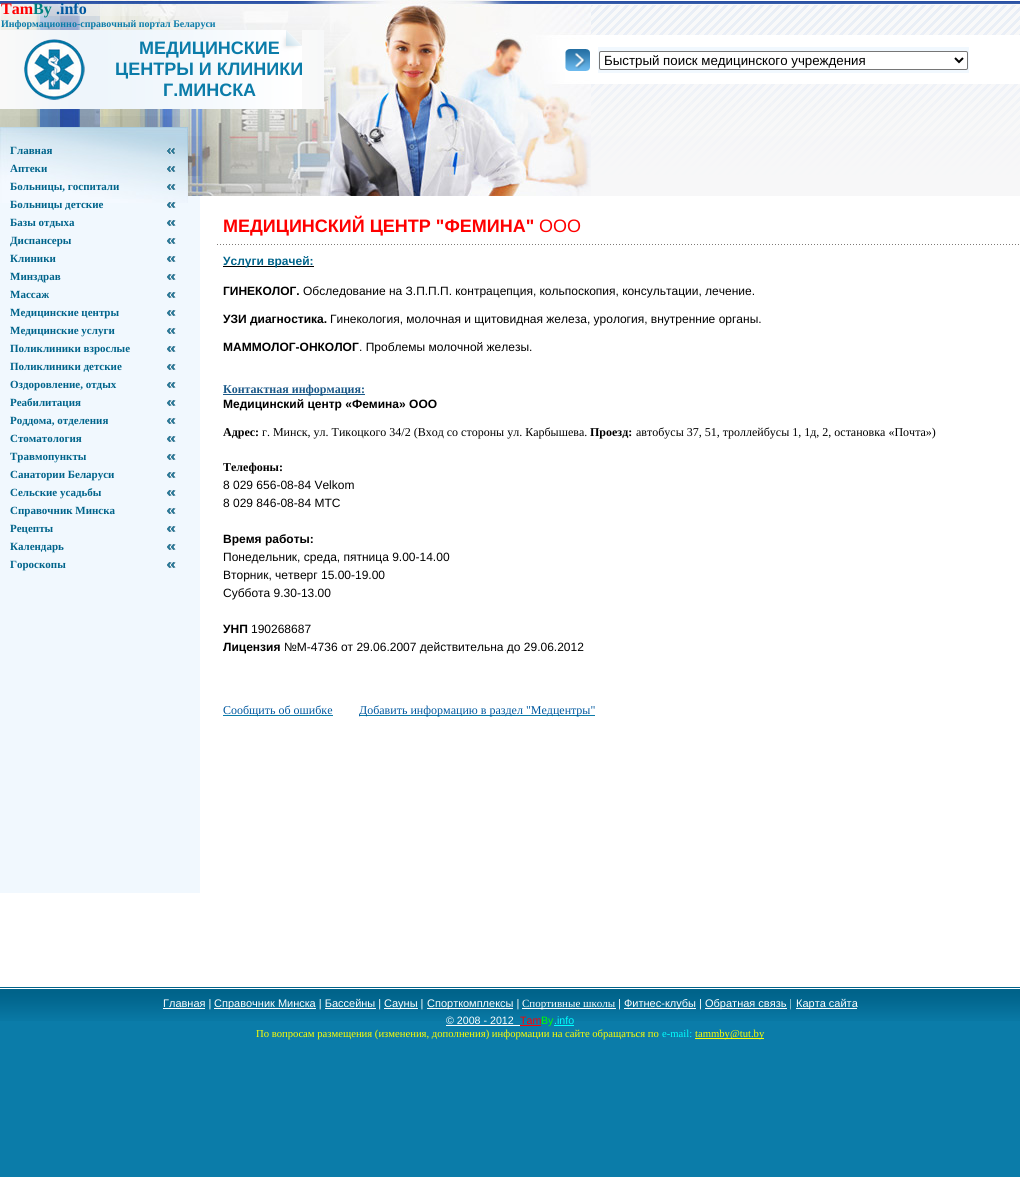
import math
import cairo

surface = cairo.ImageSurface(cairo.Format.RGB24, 1020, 1177)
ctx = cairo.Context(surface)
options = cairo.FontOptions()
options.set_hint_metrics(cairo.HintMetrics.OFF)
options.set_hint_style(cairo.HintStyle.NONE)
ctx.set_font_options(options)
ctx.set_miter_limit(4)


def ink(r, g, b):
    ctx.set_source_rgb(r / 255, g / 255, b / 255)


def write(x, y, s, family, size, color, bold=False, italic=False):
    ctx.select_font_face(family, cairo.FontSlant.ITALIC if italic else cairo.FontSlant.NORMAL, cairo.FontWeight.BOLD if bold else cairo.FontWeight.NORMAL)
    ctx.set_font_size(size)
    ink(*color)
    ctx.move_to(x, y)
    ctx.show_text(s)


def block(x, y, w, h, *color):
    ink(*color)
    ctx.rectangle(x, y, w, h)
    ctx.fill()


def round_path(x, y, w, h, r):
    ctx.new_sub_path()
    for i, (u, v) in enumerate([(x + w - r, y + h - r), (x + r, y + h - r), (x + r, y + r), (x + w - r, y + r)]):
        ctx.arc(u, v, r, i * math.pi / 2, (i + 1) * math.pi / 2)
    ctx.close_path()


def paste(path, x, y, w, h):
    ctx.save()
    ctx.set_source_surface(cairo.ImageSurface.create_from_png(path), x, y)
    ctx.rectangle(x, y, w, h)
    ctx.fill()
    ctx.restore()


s1 = dict(family="Liberation Serif", size=16, color=(255, 0, 0), bold=True)
s2 = dict(family="Liberation Serif", size=16, color=(0, 128, 128), bold=True)
s3 = dict(family="Liberation Serif", size=16, color=(0, 88, 159), bold=True)
s4 = dict(family="Liberation Serif", size=10, color=(11, 124, 169), bold=True)
s5 = dict(family="Liberation Sans", size=13.3, color=(0, 0, 0))
s6 = dict(family="Liberation Sans", size=18, color=(11, 124, 169), bold=True)
s7 = dict(family="Liberation Serif", size=11, color=(0, 100, 139), bold=True)
s8 = dict(family="Liberation Sans", size=18, color=(255, 0, 0), bold=True)
s9 = dict(family="Liberation Sans", size=18, color=(255, 0, 0))
s10 = dict(family="Liberation Sans", size=12, color=(0, 100, 139), bold=True)
s11 = dict(family="Liberation Sans", size=12, color=(0, 0, 0), bold=True)
s12 = dict(family="Liberation Sans", size=12, color=(0, 0, 0))
s13 = dict(family="Liberation Serif", size=12, color=(27, 89, 137), bold=True)
s14 = dict(family="Liberation Serif", size=12, color=(0, 0, 0), bold=True)
s15 = dict(family="Liberation Serif", size=12, color=(0, 0, 0))
s16 = dict(family="Liberation Serif", size=12, color=(0, 88, 159))
s17 = dict(family="Liberation Sans", size=11, color=(255, 255, 255))
s18 = dict(family="Liberation Serif", size=11, color=(255, 255, 255))
s19 = dict(family="Liberation Sans", size=10.65, color=(255, 255, 255))
s20 = dict(family="Liberation Sans", size=10.65, color=(255, 0, 0))
s21 = dict(family="Liberation Sans", size=10.65, color=(0, 255, 0))
s22 = dict(family="Liberation Sans", size=10.65, color=(0, 255, 255))
s23 = dict(family="Liberation Serif", size=10.65, color=(255, 255, 0))
s24 = dict(family="Liberation Serif", size=10.65, color=(0, 255, 255))

ink(255, 255, 255)
ctx.paint()
paste("pic1.png", 591, 1, 429, 195)
paste("pic2.png", 0, 0, 591, 196)
write(1, 14, "Tam", **s1)
write(33, 14, "By", **s2)
write(56, 14, ".info", **s3)
write(1, 27, "Информационно-справочный портал Беларуси", **s4)
paste("pic3.png", 565, 49, 25, 22)
block(598, 47, 371, 26, 241, 248, 254)
ink(255, 255, 255)
round_path(599.5, 51.5, 368, 18, 1.5)
ctx.fill_preserve()
ink(118, 118, 118)
ctx.set_line_width(1)
ctx.stroke()
ctx.new_path()
ctx.move_to(955, 58)
ctx.line_to(959, 62)
ctx.line_to(963, 58)
ink(0, 0, 0)
ctx.set_line_width(2)
ctx.stroke()
write(604, 65, "Быстрый поиск медицинского учреждения", **s5)
paste("pic4.png", 0, 30, 324, 79)
paste("pic5.png", 24, 39, 61, 61)
write(139, 54, "МЕДИЦИНСКИЕ", **s6)
write(115, 75, "ЦЕНТРЫ И КЛИНИКИ", **s6)
write(163, 96, "Г.МИНСКА", **s6)
block(0, 196, 200, 697, 241, 248, 254)
paste("pic6.png", 0, 127, 188, 76)
paste("pic7.png", 167, 148, 9, 6)
write(10, 154, "Главная", **s7)
paste("pic8.png", 167, 166, 9, 6)
write(10, 172, "Аптеки", **s7)
paste("pic9.png", 167, 184, 9, 6)
write(10, 190, "Больницы, госпитали", **s7)
paste("pic10.png", 167, 202, 9, 6)
write(10, 208, "Больницы детские", **s7)
paste("pic11.png", 167, 220, 9, 6)
write(10, 226, "Базы отдыха", **s7)
paste("pic11.png", 167, 238, 9, 6)
write(10, 244, "Диспансеры", **s7)
paste("pic11.png", 167, 256, 9, 6)
write(10, 262, "Клиники", **s7)
paste("pic11.png", 167, 274, 9, 6)
write(10, 280, "Минздрав", **s7)
paste("pic11.png", 167, 292, 9, 6)
write(10, 298, "Массаж", **s7)
paste("pic11.png", 167, 310, 9, 6)
write(10, 316, "Медицинские центры", **s7)
paste("pic11.png", 167, 328, 9, 6)
write(10, 334, "Медицинские услуги", **s7)
paste("pic11.png", 167, 346, 9, 6)
write(10, 352, "Поликлиники взрослые", **s7)
paste("pic11.png", 167, 364, 9, 6)
write(10, 370, "Поликлиники детские", **s7)
paste("pic11.png", 167, 382, 9, 6)
write(10, 388, "Оздоровление, отдых", **s7)
paste("pic11.png", 167, 400, 9, 6)
write(10, 406, "Реабилитация", **s7)
paste("pic11.png", 167, 418, 9, 6)
write(10, 424, "Роддома, отделения", **s7)
paste("pic11.png", 167, 436, 9, 6)
write(10, 442, "Стоматология", **s7)
paste("pic11.png", 167, 454, 9, 6)
write(10, 460, "Травмопункты", **s7)
paste("pic11.png", 167, 472, 9, 6)
write(10, 478, "Санатории Беларуси", **s7)
paste("pic11.png", 167, 490, 9, 6)
write(10, 496, "Сельские усадьбы", **s7)
paste("pic11.png", 167, 508, 9, 6)
write(10, 514, "Справочник Минска", **s7)
paste("pic11.png", 167, 526, 9, 6)
write(10, 532, "Рецепты", **s7)
paste("pic11.png", 167, 544, 9, 6)
write(10, 550, "Календарь", **s7)
paste("pic11.png", 167, 562, 9, 6)
write(10, 568, "Гороскопы", **s7)
write(223, 232, "МЕДИЦИНСКИЙ ЦЕНТР \"ФЕМИНА\"", **s8)
write(539, 232, "ООО", **s9)
paste("pic12.png", 215, 244, 804, 1)
block(223, 266, 91, 1, 0, 0, 0)
write(223, 265, "Услуги врачей:", **s10)
write(223, 295, "ГИНЕКОЛОГ.", **s11)
write(303, 295, "Обследование на З.П.П.П. контрацепция, кольпоскопия, консультации, лечение.", **s12)
write(223, 323, "УЗИ диагностика.", **s11)
write(330, 323, "Гинекология, молочная и щитовидная железа, урология, внутренние органы.", **s12)
write(223, 351, "МАММОЛОГ-ОНКОЛОГ", **s11)
write(359, 351, ". Проблемы молочной железы.", **s12)
block(223, 394, 142, 1, 27, 89, 137)
write(223, 393, "Контактная информация:", **s13)
write(223, 408, "Медицинский центр «Фемина» ООО", **s11)
write(223, 436, "Адрес:", **s14)
write(262, 436, "г. Минск, ул. Тикоцкого 34/2 (Вход со стороны ул. Карбышева.", **s15)
write(590, 436, "Проезд:", **s14)
write(636, 436, "автобусы 37, 51, троллейбусы 1, 1д, 2, остановка «Почта»)", **s15)
write(223, 471, "Телефоны:", **s14)
write(223, 489, "8 029 656-08-84 Velkom", **s12)
write(223, 507, "8 029 846-08-84 МТС", **s12)
write(223, 543, "Время работы:", **s11)
write(223, 561, "Понедельник, среда, пятница 9.00-14.00", **s12)
write(223, 579, "Вторник, четверг 15.00-19.00", **s12)
write(223, 597, "Суббота 9.30-13.00", **s12)
write(223, 633, "УНП", **s11)
write(251, 633, "190268687", **s12)
write(223, 651, "Лицензия", **s11)
write(284, 651, "№М-4736 от 29.06.2007 действительна до 29.06.2012", **s12)
block(223, 715, 110, 1, 11, 124, 169)
write(223, 714, "Сообщить об ошибке", **s16)
block(359, 715, 236, 1, 11, 124, 169)
write(359, 714, "Добавить информацию в раздел \"Медцентры\"", **s16)
block(0, 1021, 1020, 156, 11, 124, 169)
paste("pic13.png", 0, 987, 1020, 34)
block(163, 1008, 42, 1, 255, 255, 255)
write(163, 1007, "Главная |", **s17)
block(214, 1008, 102, 1, 255, 255, 255)
write(214, 1007, "Справочник Минска | Бассейны |", **s17)
block(384, 1008, 34, 1, 255, 255, 255)
write(384, 1007, "Сауны |", **s17)
block(427, 1008, 86, 1, 255, 255, 255)
write(427, 1007, "Спорткомплексы |", **s17)
block(522, 1008, 94, 1, 255, 255, 255)
write(522, 1007, "Спортивные школы", **s18)
write(618, 1007, "|", **s17)
block(624, 1008, 72, 1, 255, 255, 255)
write(624, 1007, "Фитнес-клубы |", **s17)
block(705, 1008, 82, 1, 255, 255, 255)
write(705, 1007, "Обратная связь |", **s17)
block(796, 1008, 61, 1, 255, 255, 255)
write(796, 1007, "Карта сайта", **s17)
block(325, 1008, 51, 1, 255, 255, 255)
write(446, 1024, "© 2008 - 2012", **s19)
block(446, 1025, 74, 1, 255, 255, 255)
write(520, 1024, "Tam", **s20)
write(541, 1024, "By", **s21)
block(520, 1025, 21, 1, 255, 0, 0)
block(554, 1025, 20, 1, 0, 255, 255)
write(554, 1024, ".info", **s22)
write(256, 1037, "По вопросам размещения (изменения, дополнения) информации на сайте обращаться по", **s23)
write(662, 1037, "e-mail:", **s24)
block(695, 1038, 69, 1, 255, 255, 0)
write(695, 1037, "tammby@tut.by", **s23)
surface.write_to_png("screenshot.png")
